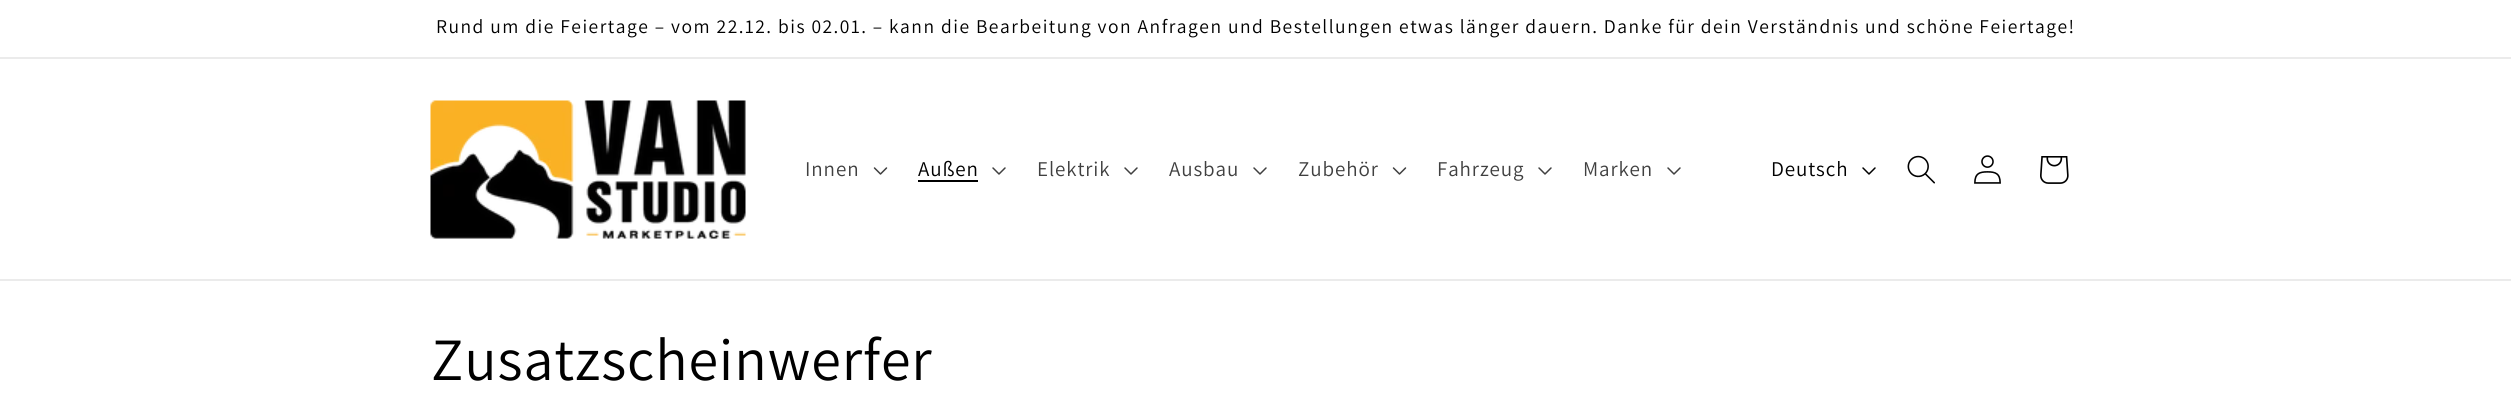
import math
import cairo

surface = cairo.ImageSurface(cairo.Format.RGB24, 2511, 396)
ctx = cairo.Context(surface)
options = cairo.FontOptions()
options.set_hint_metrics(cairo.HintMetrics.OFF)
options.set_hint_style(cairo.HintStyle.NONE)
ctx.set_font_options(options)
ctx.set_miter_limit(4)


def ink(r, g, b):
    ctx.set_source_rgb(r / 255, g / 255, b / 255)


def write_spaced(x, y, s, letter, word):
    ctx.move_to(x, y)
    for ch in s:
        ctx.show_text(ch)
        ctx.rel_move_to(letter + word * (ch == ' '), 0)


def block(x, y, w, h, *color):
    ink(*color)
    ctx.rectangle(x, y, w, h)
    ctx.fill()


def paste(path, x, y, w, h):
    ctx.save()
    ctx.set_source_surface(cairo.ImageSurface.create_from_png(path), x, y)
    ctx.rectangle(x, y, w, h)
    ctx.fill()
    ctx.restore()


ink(255, 255, 255)
ctx.paint()
block(0, 57, 2511, 2, 235, 235, 235)
ctx.select_font_face("Assistant")
ctx.set_font_size(19.5)
ink(0, 0, 0)
write_spaced(436, 33, "Rund um die Feiertage – vom 22.12. bis 02.01. – kann die Bearbeitung von Anfragen und Bestellungen etwas länger dauern. Danke für dein Verständnis und schöne Feiertage!", 1.5, 0)
block(0, 279, 2511, 2, 235, 235, 235)
paste("pic1.png", 430, 100, 316, 139)
ctx.set_font_size(21)
ink(64, 64, 64)
write_spaced(805, 176, "Innen", 0.9, 0)
paste("pic2.png", 873, 167, 15, 8)
ink(0, 0, 0)
write_spaced(918, 176, "Außen", 0.9, 0)
block(918, 180, 60, 2, 0, 0, 0)
paste("pic3.png", 992, 167, 14, 8)
ink(64, 64, 64)
write_spaced(1037, 176, "Elektrik", 0.9, 0)
paste("pic3.png", 1124, 167, 14, 8)
write_spaced(1169, 176, "Ausbau", 0.9, 0)
paste("pic3.png", 1253, 167, 14, 8)
write_spaced(1298, 176, "Zubehör", 0.9, 0)
paste("pic2.png", 1392, 167, 15, 8)
write_spaced(1437, 176, "Fahrzeug", 0.9, 0)
paste("pic3.png", 1538, 167, 14, 8)
write_spaced(1583, 176, "Marken", 0.9, 0)
paste("pic3.png", 1667, 167, 14, 8)
ink(0, 0, 0)
write_spaced(1771, 176, "Deutsch", 0.9, 0)
paste("pic4.png", 1862, 167, 14, 8)
paste("pic5.png", 1907, 155, 28, 29)
paste("pic6.png", 1974, 155, 27, 29)
paste("pic7.png", 2040, 156, 29, 28)
ctx.set_font_size(60)
write_spaced(431, 380, "Zusatzscheinwerfer", 0.9, 0)
surface.write_to_png("screenshot.png")
